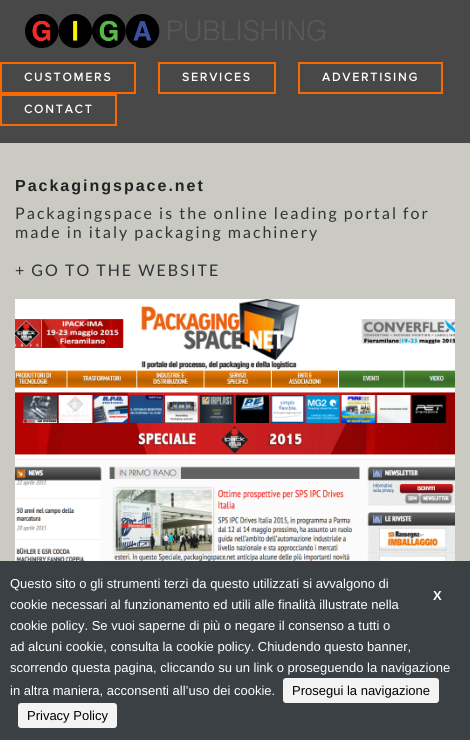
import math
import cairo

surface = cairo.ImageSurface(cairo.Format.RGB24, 470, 740)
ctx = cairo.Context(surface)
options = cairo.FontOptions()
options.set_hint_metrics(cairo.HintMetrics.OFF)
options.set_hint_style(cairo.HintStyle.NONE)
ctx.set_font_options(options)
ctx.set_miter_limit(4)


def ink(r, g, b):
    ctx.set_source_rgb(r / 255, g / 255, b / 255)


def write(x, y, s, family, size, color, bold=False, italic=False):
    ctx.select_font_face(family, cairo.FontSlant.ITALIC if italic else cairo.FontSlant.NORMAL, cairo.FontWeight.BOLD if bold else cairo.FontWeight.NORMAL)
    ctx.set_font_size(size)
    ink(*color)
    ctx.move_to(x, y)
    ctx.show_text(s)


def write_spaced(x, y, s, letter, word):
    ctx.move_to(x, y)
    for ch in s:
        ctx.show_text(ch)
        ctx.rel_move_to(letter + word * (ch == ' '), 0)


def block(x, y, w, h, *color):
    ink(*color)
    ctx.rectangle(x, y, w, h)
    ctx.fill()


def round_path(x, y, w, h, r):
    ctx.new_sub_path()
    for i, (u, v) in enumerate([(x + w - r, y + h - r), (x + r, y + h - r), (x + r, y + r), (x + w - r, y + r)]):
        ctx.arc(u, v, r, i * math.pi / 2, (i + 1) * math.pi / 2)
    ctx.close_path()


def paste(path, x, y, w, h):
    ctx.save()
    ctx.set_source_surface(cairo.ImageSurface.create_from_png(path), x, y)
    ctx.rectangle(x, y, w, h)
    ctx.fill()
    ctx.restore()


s1 = dict(family="Liberation Sans", size=13, color=(255, 255, 255))
s2 = dict(family="Liberation Sans", size=13, color=(255, 255, 255), bold=True)
s3 = dict(family="Liberation Sans", size=13, color=(0, 0, 0))

ink(72, 72, 72)
ctx.paint()
paste("pic1.png", 25, 14, 300, 34)
ctx.rectangle(1, 63, 134, 30)
ink(250, 105, 0)
ctx.stroke()
ctx.select_font_face("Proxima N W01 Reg", cairo.FontSlant.NORMAL, cairo.FontWeight.BOLD)
ctx.set_font_size(12)
ink(255, 255, 255)
write_spaced(24, 81, "CUSTOMERS", 2, 0)
ctx.rectangle(159, 63, 116, 30)
ink(250, 105, 0)
ctx.stroke()
ink(255, 255, 255)
write_spaced(182, 81, "SERVICES", 2, 0)
ctx.rectangle(299, 63, 143, 30)
ink(250, 105, 0)
ctx.stroke()
ink(255, 255, 255)
write_spaced(322, 81, "ADVERTISING", 2, 0)
ctx.rectangle(1, 95, 115, 30)
ink(250, 105, 0)
ctx.stroke()
ink(255, 255, 255)
write_spaced(24, 113, "CONTACT", 2, 0)
block(0, 143, 470, 418, 202, 202, 194)
ctx.select_font_face("Liberation Sans", cairo.FontSlant.NORMAL, cairo.FontWeight.BOLD)
ctx.set_font_size(16)
ink(34, 34, 34)
write_spaced(15, 191, "Packagingspace.net", 2, 0)
ctx.select_font_face("Lato")
ink(48, 51, 54)
write_spaced(15, 219, "Packagingspace is the online leading portal for", 2, 0)
write_spaced(15, 238, "made in italy packaging machinery", 2, 0)
write_spaced(15, 276, "+ GO TO THE WEBSITE", 2, 0)
paste("pic2.png", 15, 299, 440, 262)
block(0, 561, 470, 179, 59, 64, 69)
write(10, 588, "Questo sito o gli strumenti terzi da questo utilizzati si avvalgono di", **s1)
write(433, 600, "X", **s2)
write(10, 609, "cookie necessari al funzionamento ed utili alle finalità illustrate nella", **s1)
write(10, 630, "cookie policy. Se vuoi saperne di più o negare il consenso a tutti o", **s1)
write(10, 651, "ad alcuni cookie, consulta la cookie policy. Chiudendo questo banner,", **s1)
write(10, 672, "scorrendo questa pagina, cliccando su un link o proseguendo la navigazione", **s1)
write(10, 695, "in altra maniera, acconsenti all’uso dei cookie.", **s1)
ink(243, 243, 243)
round_path(283, 678, 156, 25, 3)
ctx.fill()
write(292, 695, "Prosegui la navigazione", **s3)
ink(243, 243, 243)
round_path(18, 703, 99, 25, 3)
ctx.fill()
write(27, 720, "Privacy Policy", **s3)
surface.write_to_png("screenshot.png")
